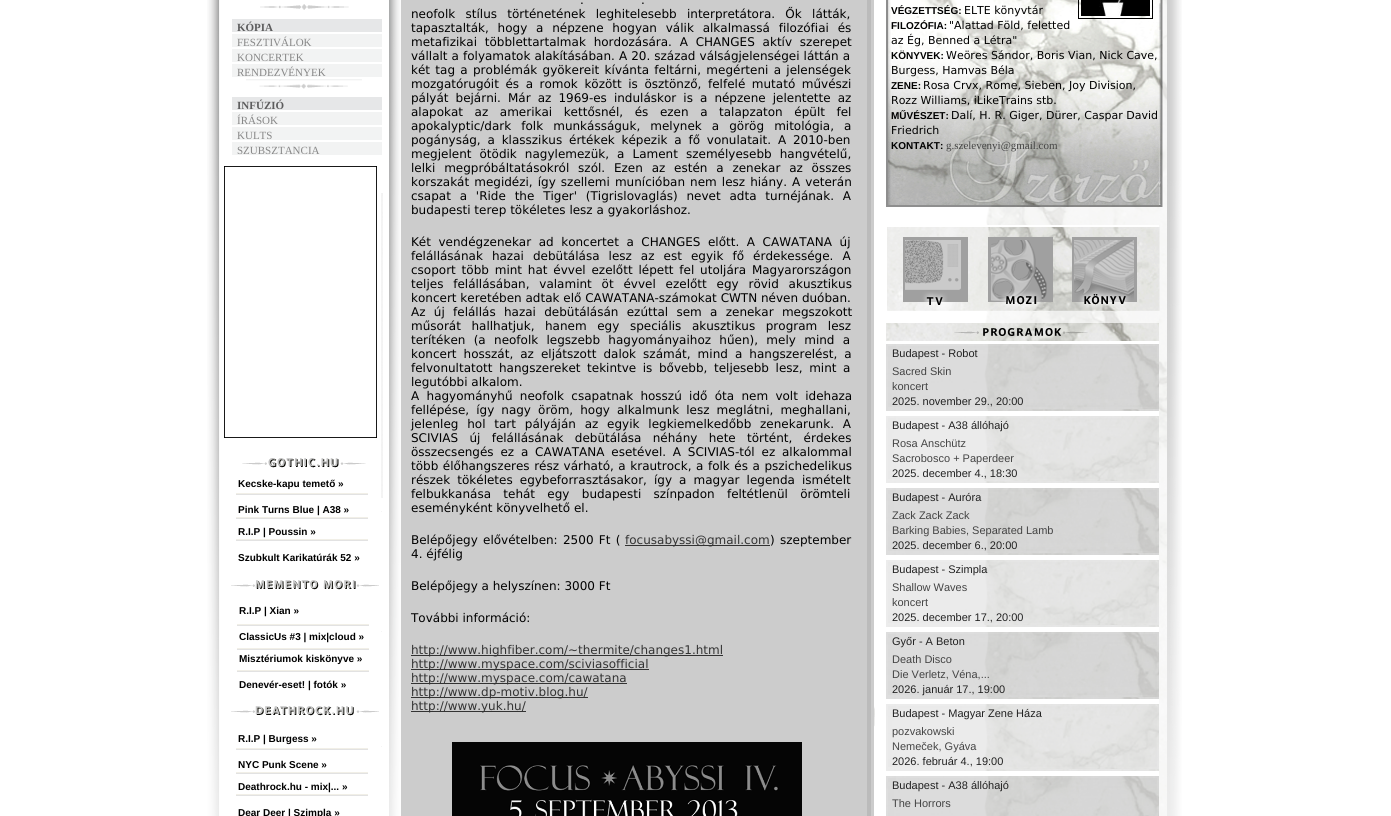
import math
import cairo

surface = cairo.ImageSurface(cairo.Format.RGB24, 1391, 816)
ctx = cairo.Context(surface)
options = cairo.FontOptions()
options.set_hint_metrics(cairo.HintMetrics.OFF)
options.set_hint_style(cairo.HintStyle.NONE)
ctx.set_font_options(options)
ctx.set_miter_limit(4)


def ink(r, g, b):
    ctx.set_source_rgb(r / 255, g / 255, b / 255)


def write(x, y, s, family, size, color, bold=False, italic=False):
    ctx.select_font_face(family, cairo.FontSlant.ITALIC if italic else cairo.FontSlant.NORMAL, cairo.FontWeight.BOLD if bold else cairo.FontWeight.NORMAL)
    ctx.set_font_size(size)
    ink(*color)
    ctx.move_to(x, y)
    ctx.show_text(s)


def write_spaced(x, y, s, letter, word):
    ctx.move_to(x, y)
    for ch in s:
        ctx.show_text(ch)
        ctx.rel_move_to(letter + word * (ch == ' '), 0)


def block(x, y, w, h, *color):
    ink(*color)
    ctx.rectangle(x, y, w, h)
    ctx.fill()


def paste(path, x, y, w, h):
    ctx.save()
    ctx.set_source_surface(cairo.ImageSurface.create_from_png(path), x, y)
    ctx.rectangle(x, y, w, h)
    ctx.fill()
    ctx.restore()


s1 = dict(family="DejaVu Sans", size=12, color=(0, 0, 0))
s2 = dict(family="DejaVu Sans", size=12, color=(51, 51, 51))
s3 = dict(family="Liberation Serif", size=11, color=(92, 92, 93), bold=True)
s4 = dict(family="Liberation Serif", size=11, color=(135, 135, 135))
s5 = dict(family="Liberation Sans", size=10, color=(0, 0, 0), bold=True)
s6 = dict(family="DejaVu Sans", size=11, color=(0, 0, 0))
s7 = dict(family="Liberation Serif", size=11, color=(68, 68, 68))
s8 = dict(family="Liberation Sans", size=11, color=(33, 33, 33))
s9 = dict(family="Liberation Sans", size=11, color=(68, 68, 68))

ink(255, 255, 255)
ctx.paint()
paste("pic1.png", 207, 0, 975, 816)
block(401, 0, 473, 816, 204, 204, 204)
write(580, 4, ".", **s1)
write(641, 4, ".", **s1)
write_spaced(411, 18, "neofolk stílus történetének leghitelesebb interpretátora. Ők látták,", 0, 6.5)
write_spaced(411, 32, "tapasztalták, hogy a népzene hogyan válik alkalmassá filozófiai és", 0, 5)
write_spaced(411, 46, "metafizikai többlettartalmak hordozására. A CHANGES aktív szerepet", 0, 4)
write_spaced(411, 60, "vállalt a folyamatok alakításában. A 20. század válságjelenségei láttán a", 0, 0.25)
write_spaced(411, 74, "két tag a problémák gyökereit kívánta feltárni, megérteni a jelenségek", 0, 1.5)
write_spaced(411, 88, "mozgatórugóit és a romok között is ösztönző, felfelé mutató művészi", 0, 2.75)
write_spaced(411, 102, "pályát bejárni. Már az 1969-es induláskor is a népzene jelentette az", 0, 3.25)
write_spaced(411, 116, "alapokat az amerikai kettősnél, és ezen a talapzaton épült fel", 0, 7.75)
write_spaced(411, 130, "apokalyptic/dark folk munkásságuk, melynek a görög mitológia, a", 0, 6.25)
write_spaced(411, 144, "pogányság, a klasszikus értékek képezik a fő vonulatait. A 2010-ben", 0, 3)
write_spaced(411, 158, "megjelent ötödik nagylemezük, a Lament személyesebb hangvételű,", 0, 4.25)
write_spaced(411, 172, "lelki megpróbáltatásokról szól. Ezen az estén a zenekar az összes", 0, 5)
write_spaced(411, 186, "korszakát megidézi, így szellemi munícióban nem lesz hiány. A veterán", 0, 1.25)
write_spaced(411, 200, "csapat a 'Ride the Tiger' (Tigrislovaglás) nevet adta turnéjának. A", 0, 5)
write(411, 214, "budapesti terep tökéletes lesz a gyakorláshoz.", **s1)
write_spaced(411, 246, "Két vendégzenekar ad koncertet a CHANGES előtt. A CAWATANA új", 0, 3.75)
write_spaced(411, 260, "felállásának hazai debütálása lesz az est egyik fő érdekessége. A", 0, 5.25)
write_spaced(411, 274, "csoport több mint hat évvel ezelőtt lépett fel utoljára Magyarországon", 0, 2)
write_spaced(411, 288, "teljes felállásában, valamint öt évvel ezelőtt egy rövid akusztikus", 0, 6)
write(411, 302, "koncert keretében adtak elő CAWATANA-számokat CWTN néven duóban.", **s1)
write_spaced(411, 316, "Az új felállás hazai debütálásán ezúttal sem a zenekar megszokott", 0, 4.5)
write_spaced(411, 330, "műsorát hallhatjuk, hanem egy speciális akusztikus program lesz", 0, 6.75)
write_spaced(411, 344, "terítéken (a neofolk legszebb hagyományaihoz hűen), mely mind a", 0, 4.5)
write_spaced(411, 358, "koncert hosszát, az eljátszott dalok számát, mind a hangszerelést, a", 0, 3.25)
write_spaced(411, 372, "felvonultatott hangszereket tekintve is bővebb, teljesebb lesz, mint a", 0, 2.75)
write(411, 386, "legutóbbi alkalom.", **s1)
write_spaced(411, 400, "A hagyományhű neofolk csapatnak hosszú idő óta nem volt idehaza", 0, 3.5)
write_spaced(411, 414, "fellépése, így nagy öröm, hogy alkalmunk lesz meglátni, meghallani,", 0, 3.25)
write_spaced(411, 428, "jelenleg hol tart pályáján az egyik legkiemelkedőbb zenekarunk. A", 0, 5)
write_spaced(411, 442, "SCIVIAS új felállásának debütálása néhány hete történt, érdekes", 0, 7.5)
write_spaced(411, 456, "összecsengés ez a CAWATANA esetével. A SCIVIAS-tól ez alkalommal", 0, 3)
write_spaced(411, 470, "több élőhangszeres rész várható, a krautrock, a folk és a pszichedelikus", 0, 0.75)
write_spaced(411, 484, "részek tökéletes egybeforrasztásakor, így a magyar legenda ismételt", 0, 3.25)
write_spaced(411, 498, "felbukkanása tehát egy budapesti színpadon feltétlenül örömteli", 0, 8.5)
write(411, 512, "eseményként könyvelhető el.", **s1)
write_spaced(411, 544, "Belépőjegy elővételben: 2500 Ft (", 0, 1.5)
block(625, 545, 145, 1, 51, 51, 51)
write(625, 544, "focusabyssi@gmail.com", **s2)
ink(0, 0, 0)
write_spaced(770, 544, ") szeptember", 0, 1.5)
write(411, 558, "4. éjfélig", **s1)
write(411, 590, "Belépőjegy a helyszínen: 3000 Ft", **s1)
write(411, 622, "További információ:", **s1)
block(411, 655, 157, 1, 51, 51, 51)
write(411, 654, "http://www.highfiber.com/", **s2)
block(568, 655, 155, 1, 51, 51, 51)
write(568, 654, "~thermite/changes1.html", **s2)
block(411, 669, 238, 1, 51, 51, 51)
write(411, 668, "http://www.myspace.com/sciviasofficial", **s2)
block(411, 683, 216, 1, 51, 51, 51)
write(411, 682, "http://www.myspace.com/cawatana", **s2)
block(411, 697, 177, 1, 51, 51, 51)
write(411, 696, "http://www.dp-motiv.blog.hu/", **s2)
block(411, 711, 115, 1, 51, 51, 51)
write(411, 710, "http://www.yuk.hu/", **s2)
paste("pic2.png", 452, 742, 350, 74)
block(867, 0, 4, 816, 187, 187, 187)
paste("pic3.png", 260, 4, 89, 6)
block(232, 19, 150, 13, 230, 231, 232)
write(237, 31, "KÓPIA", **s3)
block(232, 34, 150, 13, 242, 243, 243)
write(237, 46, "FESZTIVÁLOK", **s4)
block(232, 49, 150, 13, 242, 243, 243)
write(237, 61, "KONCERTEK", **s4)
block(232, 64, 150, 13, 242, 243, 243)
write(237, 76, "RENDEZVÉNYEK", **s4)
paste("pic4.png", 246, 79, 116, 10)
block(232, 97, 150, 13, 230, 231, 232)
write(237, 109, "INFÚZIÓ", **s3)
block(232, 112, 150, 13, 242, 243, 243)
write(237, 124, "ÍRÁSOK", **s4)
block(232, 127, 150, 13, 242, 243, 243)
write(237, 139, "KULTS", **s4)
block(232, 142, 150, 13, 242, 243, 243)
write(237, 154, "SZUBSZTANCIA", **s4)
ctx.rectangle(224.45, 166.45, 152.1, 271.1)
ink(0, 0, 0)
ctx.set_line_width(0.9)
ctx.stroke()
paste("pic5.png", 242, 458, 124, 10)
write(238, 487, "Kecske-kapu temető »", **s5)
paste("pic6.png", 236, 493, 132, 2)
write(238, 513, "Pink Turns Blue | A38 »", **s5)
paste("pic6.png", 236, 517, 132, 2)
write(238, 535, "R.I.P | Poussin »", **s5)
paste("pic6.png", 236, 539, 132, 2)
write(238, 561, "Szubkult Karikatúrák 52 »", **s5)
paste("pic7.png", 231, 580, 148, 11)
write(239, 614, "R.I.P | Xian »", **s5)
paste("pic6.png", 237, 624, 132, 2)
write(239, 640, "ClassicUs #3 | mix|cloud »", **s5)
paste("pic6.png", 237, 648, 132, 2)
write(239, 662, "Misztériumok kiskönyve »", **s5)
paste("pic6.png", 237, 670, 132, 2)
write(239, 688, "Denevér-eset! | fotók »", **s5)
paste("pic8.png", 231, 706, 148, 16)
write(238, 742, "R.I.P | Burgess »", **s5)
paste("pic6.png", 236, 748, 132, 2)
write(238, 768, "NYC Punk Scene »", **s5)
paste("pic6.png", 236, 772, 132, 2)
write(238, 790, "Deathrock.hu - mix|... »", **s5)
paste("pic6.png", 236, 794, 132, 2)
write(238, 816, "Dear Deer | Szimpla »", **s5)
paste("pic9.png", 886, 0, 277, 207)
write(891, 14, "VÉGZETTSÉG:", **s5)
write(964, 14, "ELTE könyvtár", **s6)
ctx.rectangle(1078.5, -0.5, 74, 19)
ctx.set_line_width(1)
ctx.stroke()
paste("pic10.png", 1081, 0, 69, 16)
write(891, 29, "FILOZÓFIA:", **s5)
write(949, 29, "\"Alattad Föld, feletted", **s6)
write(891, 44, "az Ég, Benned a Létra\"", **s6)
write(891, 59, "KÖNYVEK:", **s5)
write(946, 59, "Weöres Sándor, Boris Vian, Nick Cave,", **s6)
write(891, 74, "Burgess, Hamvas Béla", **s6)
write(891, 89, "ZENE:", **s5)
write(923, 89, "Rosa Crvx, Rome, Sieben, Joy Division,", **s6)
write(891, 104, "Rozz Williams, iLikeTrains stb.", **s6)
write(891, 119, "MŰVÉSZET:", **s5)
write(951, 119, "Dalí, H. R. Giger, Dürer, Caspar David", **s6)
write(891, 134, "Friedrich", **s6)
write(891, 149, "KONTAKT:", **s5)
write(946, 149, "g.szelevenyi@gmail.com", **s7)
paste("pic11.png", 887, 227, 93, 84)
paste("pic12.png", 980, 227, 83, 84)
paste("pic13.png", 1063, 227, 97, 84)
paste("pic14.png", 886, 312, 273, 29)
paste("pic15.png", 886, 344, 273, 67)
write(892, 357, "Budapest - Robot", **s8)
write(892, 375, "Sacred Skin", **s9)
write(892, 390, "koncert", **s9)
write(892, 405, "2025. november 29., 20:00", **s8)
paste("pic16.png", 886, 416, 273, 67)
write(892, 429, "Budapest - A38 állóhajó", **s8)
write(892, 447, "Rosa Anschütz", **s9)
write(892, 462, "Sacrobosco + Paperdeer", **s9)
write(892, 477, "2025. december 4., 18:30", **s8)
paste("pic15.png", 886, 488, 273, 67)
write(892, 501, "Budapest - Auróra", **s8)
write(892, 519, "Zack Zack Zack", **s9)
write(892, 534, "Barking Babies, Separated Lamb", **s9)
write(892, 549, "2025. december 6., 20:00", **s8)
paste("pic16.png", 886, 560, 273, 67)
write(892, 573, "Budapest - Szimpla", **s8)
write(892, 591, "Shallow Waves", **s9)
write(892, 606, "koncert", **s9)
write(892, 621, "2025. december 17., 20:00", **s8)
paste("pic15.png", 886, 632, 273, 67)
write(892, 645, "Győr - A Beton", **s8)
write(892, 663, "Death Disco", **s9)
write(892, 678, "Die Verletz, Véna,...", **s9)
write(892, 693, "2026. január 17., 19:00", **s8)
paste("pic16.png", 886, 704, 273, 67)
write(892, 717, "Budapest - Magyar Zene Háza", **s8)
write(892, 735, "pozvakowski", **s9)
write(892, 750, "Nemeček, Gyáva", **s9)
write(892, 765, "2026. február 4., 19:00", **s8)
paste("pic17.png", 886, 776, 273, 40)
write(892, 789, "Budapest - A38 állóhajó", **s8)
write(892, 807, "The Horrors", **s9)
surface.write_to_png("screenshot.png")
